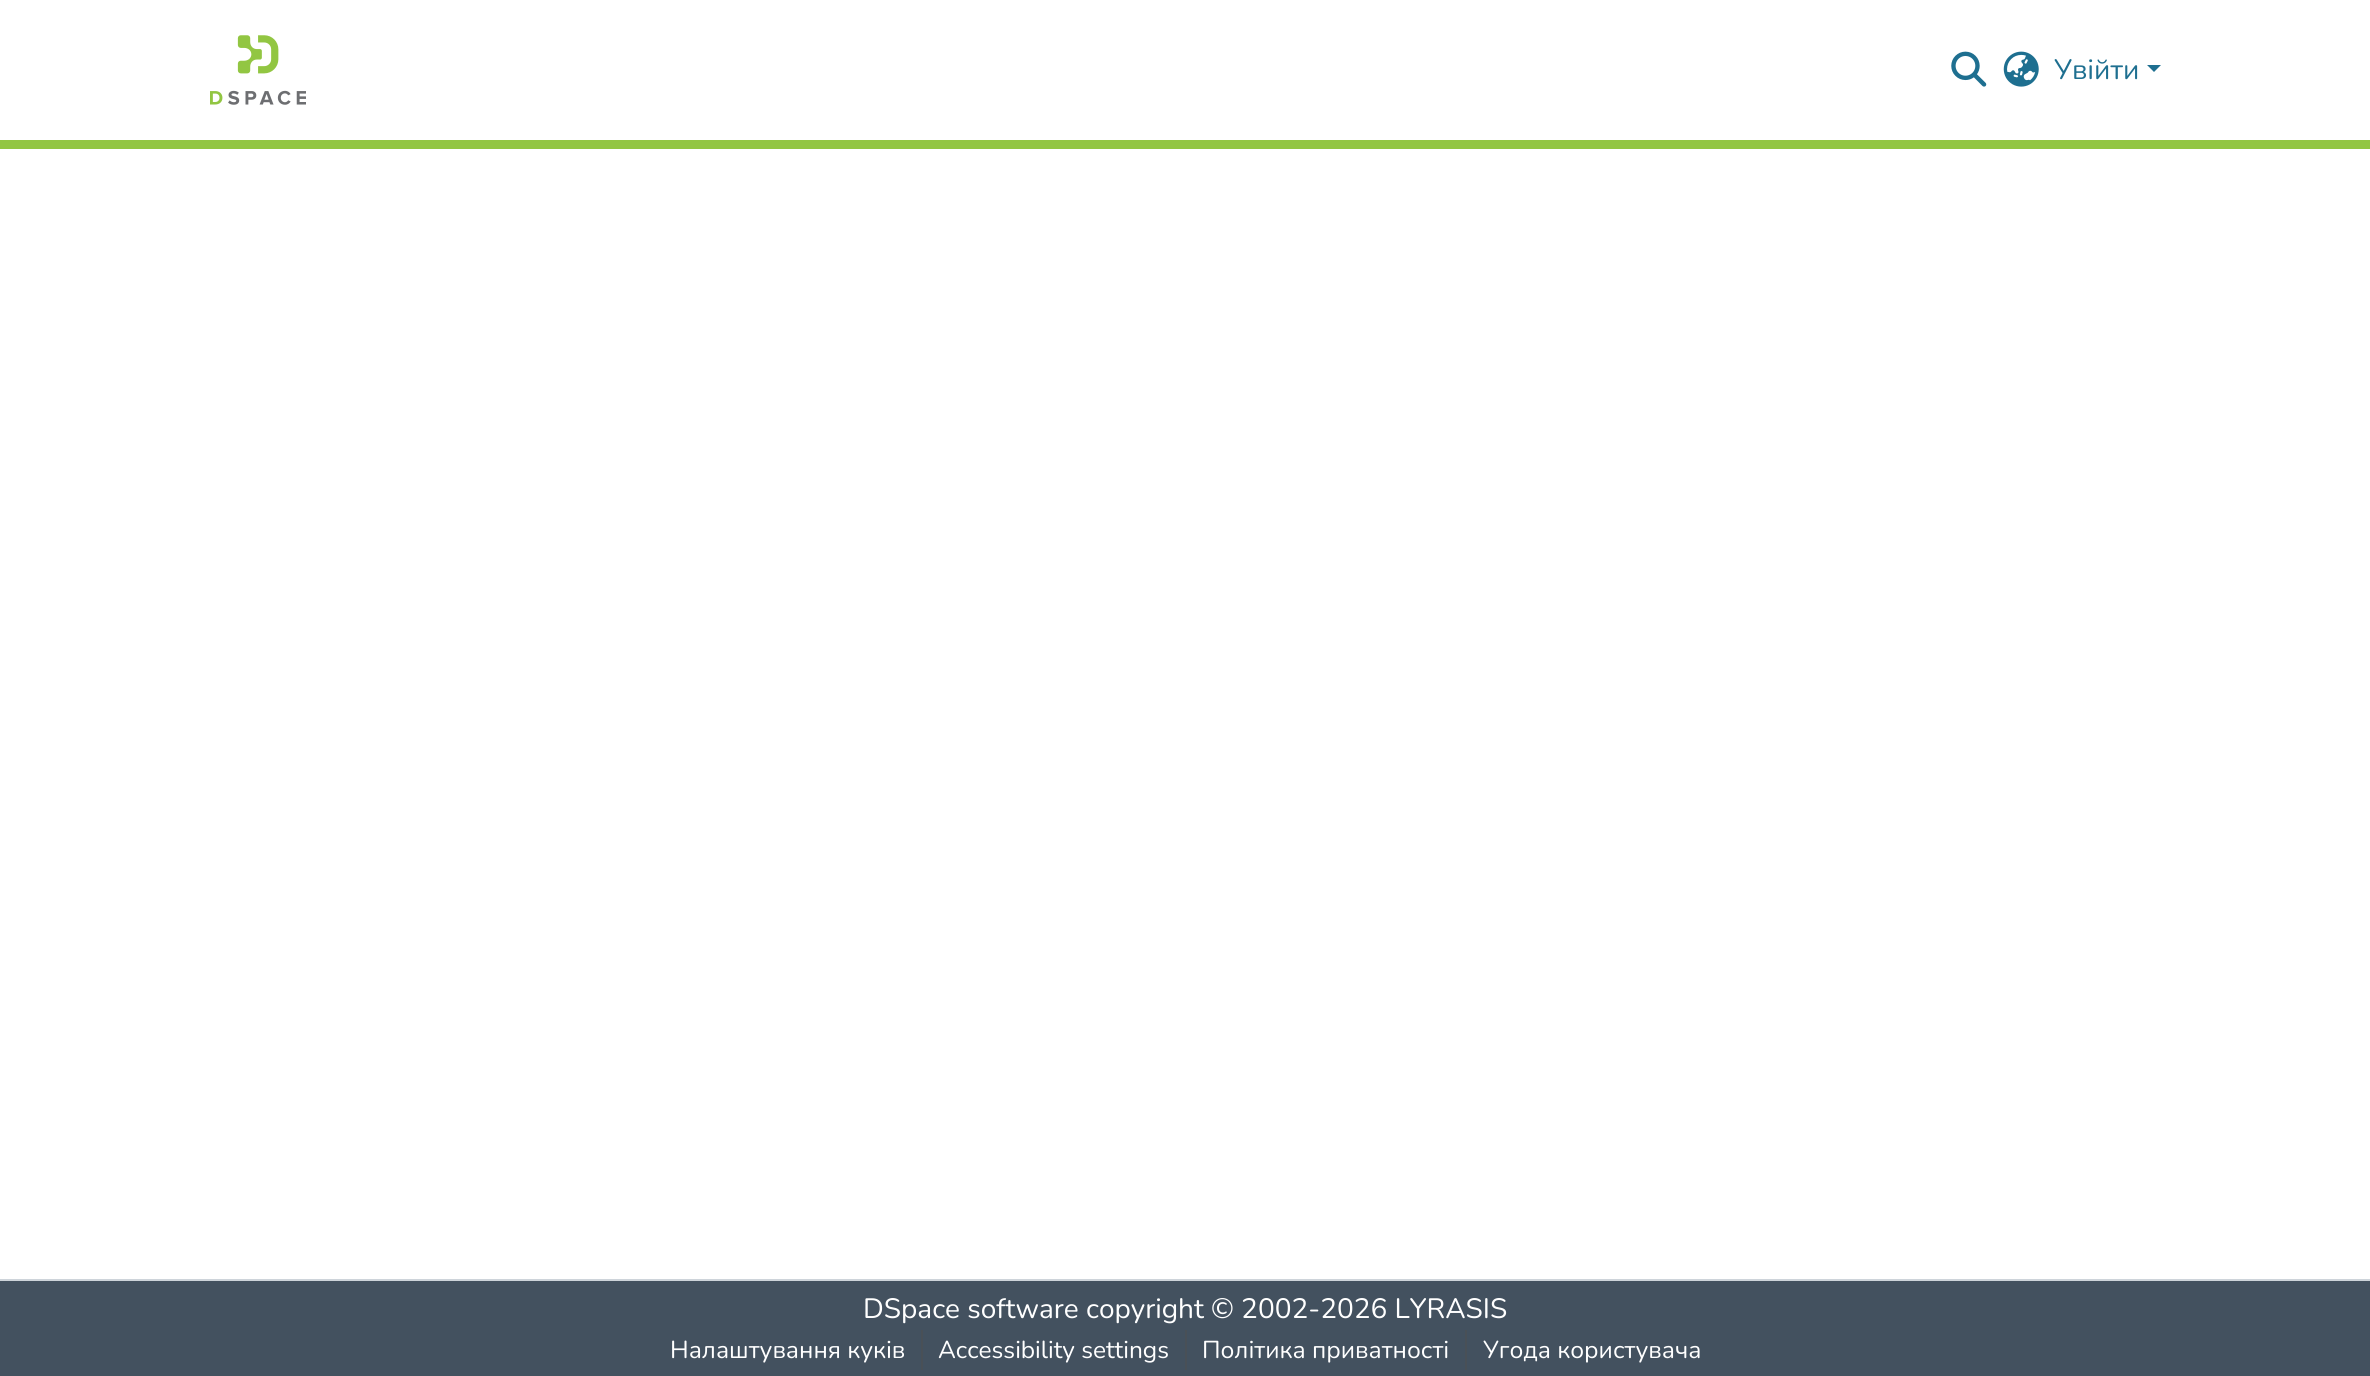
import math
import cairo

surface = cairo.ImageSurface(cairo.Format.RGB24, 2370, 1376)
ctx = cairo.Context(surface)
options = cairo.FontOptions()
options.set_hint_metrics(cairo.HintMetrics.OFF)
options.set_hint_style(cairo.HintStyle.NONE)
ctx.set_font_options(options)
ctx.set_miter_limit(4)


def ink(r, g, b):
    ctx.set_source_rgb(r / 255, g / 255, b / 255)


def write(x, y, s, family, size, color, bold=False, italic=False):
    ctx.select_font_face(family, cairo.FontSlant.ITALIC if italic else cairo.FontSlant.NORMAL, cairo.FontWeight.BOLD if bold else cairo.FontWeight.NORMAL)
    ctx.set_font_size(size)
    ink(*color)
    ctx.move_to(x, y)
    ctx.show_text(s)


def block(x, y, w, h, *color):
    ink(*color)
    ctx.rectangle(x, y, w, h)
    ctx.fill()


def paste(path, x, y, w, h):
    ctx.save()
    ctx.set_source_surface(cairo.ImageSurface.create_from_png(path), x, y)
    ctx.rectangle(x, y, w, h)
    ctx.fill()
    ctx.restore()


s1 = dict(family="Nunito", size=28, color=(30, 111, 144))
s2 = dict(family="Nunito", size=28, color=(255, 255, 255))
s3 = dict(family="Nunito", size=24.5, color=(255, 255, 255))

ink(255, 255, 255)
ctx.paint()
block(0, 140, 2370, 9, 146, 198, 66)
paste("pic1.png", 210, 35, 96, 70)
paste("pic2.png", 1951, 51, 36, 36)
paste("pic3.png", 2003, 51, 36, 36)
write(2054, 79, "Увійти", **s1)
ctx.new_path()
ctx.move_to(2147, 65)
ctx.line_to(2161, 65)
ctx.line_to(2154, 72)
ctx.close_path()
ctx.fill()
block(0, 1281, 2370, 95, 67, 81, 95)
block(0, 1279, 2370, 2, 206, 212, 218)
write(863, 1318, "DSpace software copyright © 2002-2026 LYRASIS", **s2)
write(670, 1358, "Налаштування куків", **s3)
block(921, 1330, 2, 40, 73, 80, 87)
write(938, 1358, "Accessibility settings", **s3)
block(1185, 1330, 2, 40, 73, 80, 87)
write(1202, 1358, "Політика приватності", **s3)
block(1465, 1330, 2, 40, 73, 80, 87)
write(1483, 1358, "Угода користувача", **s3)
surface.write_to_png("screenshot.png")
